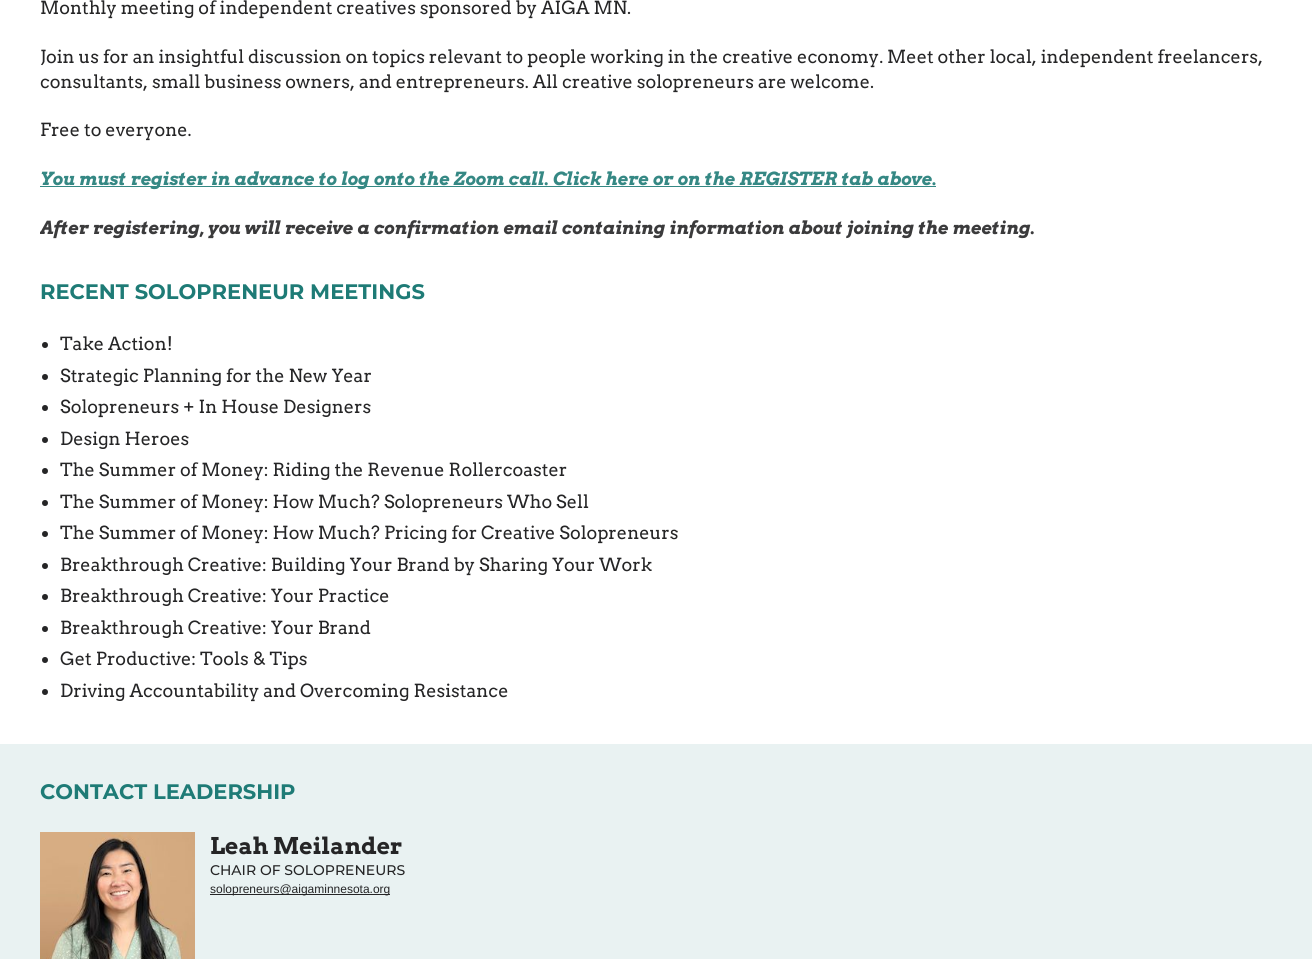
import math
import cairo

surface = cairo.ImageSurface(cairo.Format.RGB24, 1312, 959)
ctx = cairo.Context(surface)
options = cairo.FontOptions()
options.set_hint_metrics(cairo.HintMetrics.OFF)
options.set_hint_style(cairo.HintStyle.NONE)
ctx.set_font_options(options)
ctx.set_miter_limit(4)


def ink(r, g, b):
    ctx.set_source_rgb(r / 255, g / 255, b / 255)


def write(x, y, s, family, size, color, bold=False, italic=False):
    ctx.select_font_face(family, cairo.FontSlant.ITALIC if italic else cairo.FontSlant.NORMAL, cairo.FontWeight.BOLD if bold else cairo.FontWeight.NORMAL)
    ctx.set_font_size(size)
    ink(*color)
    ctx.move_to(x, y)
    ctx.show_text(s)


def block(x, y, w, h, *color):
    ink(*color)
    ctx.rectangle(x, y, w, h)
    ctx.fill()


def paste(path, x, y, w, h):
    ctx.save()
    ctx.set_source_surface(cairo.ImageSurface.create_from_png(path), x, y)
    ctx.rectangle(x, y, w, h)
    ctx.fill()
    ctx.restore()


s1 = dict(family="Arvo", size=18, color=(37, 37, 38))
s2 = dict(family="Arvo", size=18, color=(53, 136, 132), bold=True, italic=True)
s3 = dict(family="Arvo", size=18, color=(59, 59, 60), bold=True, italic=True)
s4 = dict(family="Montserrat", size=21, color=(30, 123, 118), bold=True)
s5 = dict(family="Arvo", size=23, color=(37, 37, 38), bold=True)
s6 = dict(family="Montserrat Medium", size=14, color=(37, 37, 38))
s7 = dict(family="Liberation Sans", size=12, color=(37, 37, 38))

ink(255, 255, 255)
ctx.paint()
write(40, 14, "Monthly meeting of independent creatives sponsored by AIGA MN.", **s1)
write(40, 63, "Join us for an insightful discussion on topics relevant to people working in the creative economy. Meet other local, independent freelancers,", **s1)
write(40, 88, "consultants, small business owners, and entrepreneurs. All creative solopreneurs are welcome.", **s1)
write(40, 136, "Free to everyone.", **s1)
block(40, 186, 896, 1, 53, 136, 132)
write(40, 185, "You must register in advance to log onto the Zoom call. Click here or on the REGISTER tab above.", **s2)
ctx.save()
ctx.rectangle(40, 0, 1232, 240)
ctx.clip()
write(40, 234, "After registering, you will receive a confirmation email containing information about joining the meeting.", **s3)
ctx.restore()
write(40, 299, "RECENT SOLOPRENEUR MEETINGS", **s4)
ink(37, 37, 38)
ctx.new_path()
ctx.arc(45, 345, 3, 0, 2 * math.pi)
ctx.fill()
write(60, 350, "Take Action!", **s1)
ctx.new_path()
ctx.arc(45, 377, 3, 0, 2 * math.pi)
ctx.fill()
write(60, 382, "Strategic Planning for the New Year", **s1)
ctx.new_path()
ctx.arc(45, 408, 3, 0, 2 * math.pi)
ctx.fill()
write(60, 413, "Solopreneurs + In House Designers", **s1)
ctx.new_path()
ctx.arc(45, 440, 3, 0, 2 * math.pi)
ctx.fill()
write(60, 445, "Design Heroes", **s1)
ctx.new_path()
ctx.arc(45, 471, 3, 0, 2 * math.pi)
ctx.fill()
write(60, 476, "The Summer of Money: Riding the Revenue Rollercoaster", **s1)
ctx.new_path()
ctx.arc(45, 503, 3, 0, 2 * math.pi)
ctx.fill()
write(60, 508, "The Summer of Money: How Much? Solopreneurs Who Sell", **s1)
ctx.new_path()
ctx.arc(45, 534, 3, 0, 2 * math.pi)
ctx.fill()
write(60, 539, "The Summer of Money: How Much? Pricing for Creative Solopreneurs", **s1)
ctx.new_path()
ctx.arc(45, 566, 3, 0, 2 * math.pi)
ctx.fill()
write(60, 571, "Breakthrough Creative: Building Your Brand by Sharing Your Work", **s1)
ctx.new_path()
ctx.arc(45, 597, 3, 0, 2 * math.pi)
ctx.fill()
write(60, 602, "Breakthrough Creative: Your Practice", **s1)
ctx.new_path()
ctx.arc(45, 629, 3, 0, 2 * math.pi)
ctx.fill()
write(60, 634, "Breakthrough Creative: Your Brand", **s1)
ctx.new_path()
ctx.arc(45, 660, 3, 0, 2 * math.pi)
ctx.fill()
write(60, 665, "Get Productive: Tools & Tips", **s1)
ctx.new_path()
ctx.arc(45, 692, 3, 0, 2 * math.pi)
ctx.fill()
write(60, 697, "Driving Accountability and Overcoming Resistance", **s1)
block(0, 744, 1312, 215, 233, 242, 242)
write(40, 799, "CONTACT LEADERSHIP", **s4)
paste("pic1.png", 40, 832, 155, 127)
write(210, 854, "Leah Meilander", **s5)
write(210, 875, "CHAIR OF SOLOPRENEURS", **s6)
block(210, 894, 180, 1, 37, 37, 38)
write(210, 893, "solopreneurs@aigaminnesota.org", **s7)
surface.write_to_png("screenshot.png")
